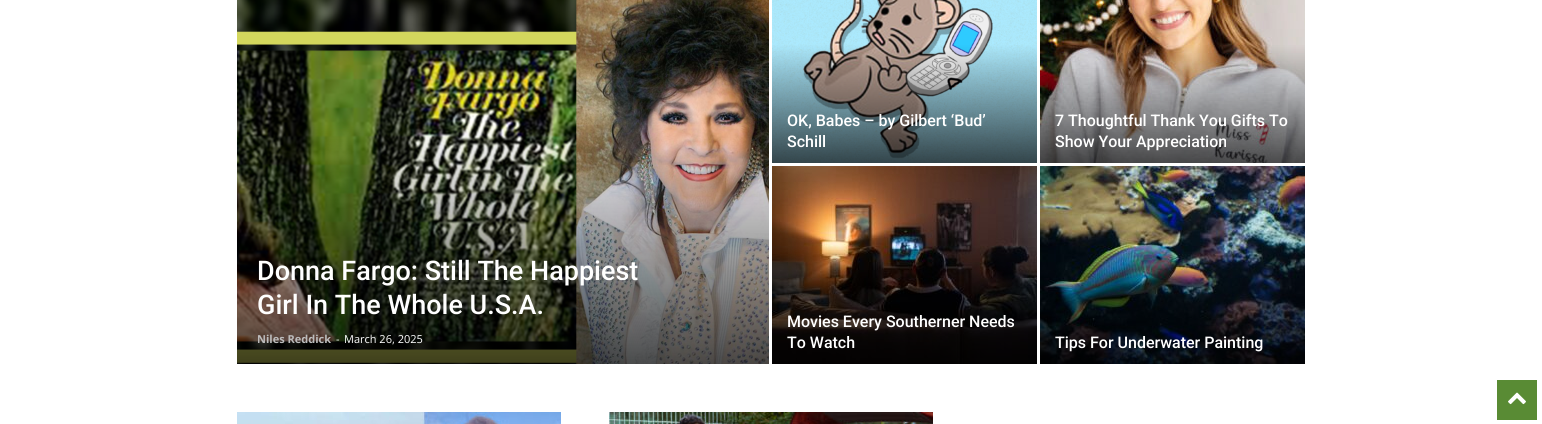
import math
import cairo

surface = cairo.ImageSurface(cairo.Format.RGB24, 1542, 424)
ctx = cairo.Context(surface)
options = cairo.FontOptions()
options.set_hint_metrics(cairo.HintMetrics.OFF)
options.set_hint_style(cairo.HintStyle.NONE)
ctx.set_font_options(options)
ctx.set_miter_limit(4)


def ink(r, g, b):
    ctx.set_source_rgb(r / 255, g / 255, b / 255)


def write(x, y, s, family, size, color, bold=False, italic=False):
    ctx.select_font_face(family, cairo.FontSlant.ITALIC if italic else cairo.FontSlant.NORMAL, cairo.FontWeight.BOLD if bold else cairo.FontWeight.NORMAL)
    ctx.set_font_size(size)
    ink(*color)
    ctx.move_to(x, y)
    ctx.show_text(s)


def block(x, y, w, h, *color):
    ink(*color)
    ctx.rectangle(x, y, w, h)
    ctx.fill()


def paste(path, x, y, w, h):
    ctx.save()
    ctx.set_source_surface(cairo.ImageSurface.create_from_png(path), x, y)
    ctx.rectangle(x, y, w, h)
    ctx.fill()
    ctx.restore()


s1 = dict(family="Roboto Medium", size=27, color=(255, 255, 255))
s2 = dict(family="Open Sans", size=11, color=(188, 188, 188), bold=True)
s3 = dict(family="Open Sans", size=11, color=(255, 255, 255))
s4 = dict(family="Roboto Medium", size=16, color=(255, 255, 255))

ink(255, 255, 255)
ctx.paint()
paste("pic1.png", 237, 0, 532, 364)
write(257, 280, "Donna Fargo: Still The Happiest", **s1)
write(257, 314, "Girl In The Whole U.S.A.", **s1)
write(257, 343, "Niles Reddick", **s2)
write(336, 343, "-", **s3)
write(344, 343, "March 26, 2025", **s3)
paste("pic2.png", 772, 0, 265, 163)
write(787, 126, "OK, Babes – by Gilbert ‘Bud’", **s4)
write(787, 147, "Schill", **s4)
paste("pic3.png", 1040, 0, 265, 163)
write(1055, 126, "7 Thoughtful Thank You Gifts To", **s4)
write(1055, 147, "Show Your Appreciation", **s4)
paste("pic4.png", 772, 166, 265, 198)
write(787, 327, "Movies Every Southerner Needs", **s4)
write(787, 348, "To Watch", **s4)
paste("pic5.png", 1040, 166, 265, 198)
write(1055, 348, "Tips For Underwater Painting", **s4)
paste("pic6.png", 237, 412, 324, 12)
paste("pic7.png", 609, 412, 324, 12)
block(1497, 380, 40, 40, 89, 139, 52)
paste("pic8.png", 1508, 392, 18, 13)
surface.write_to_png("screenshot.png")
